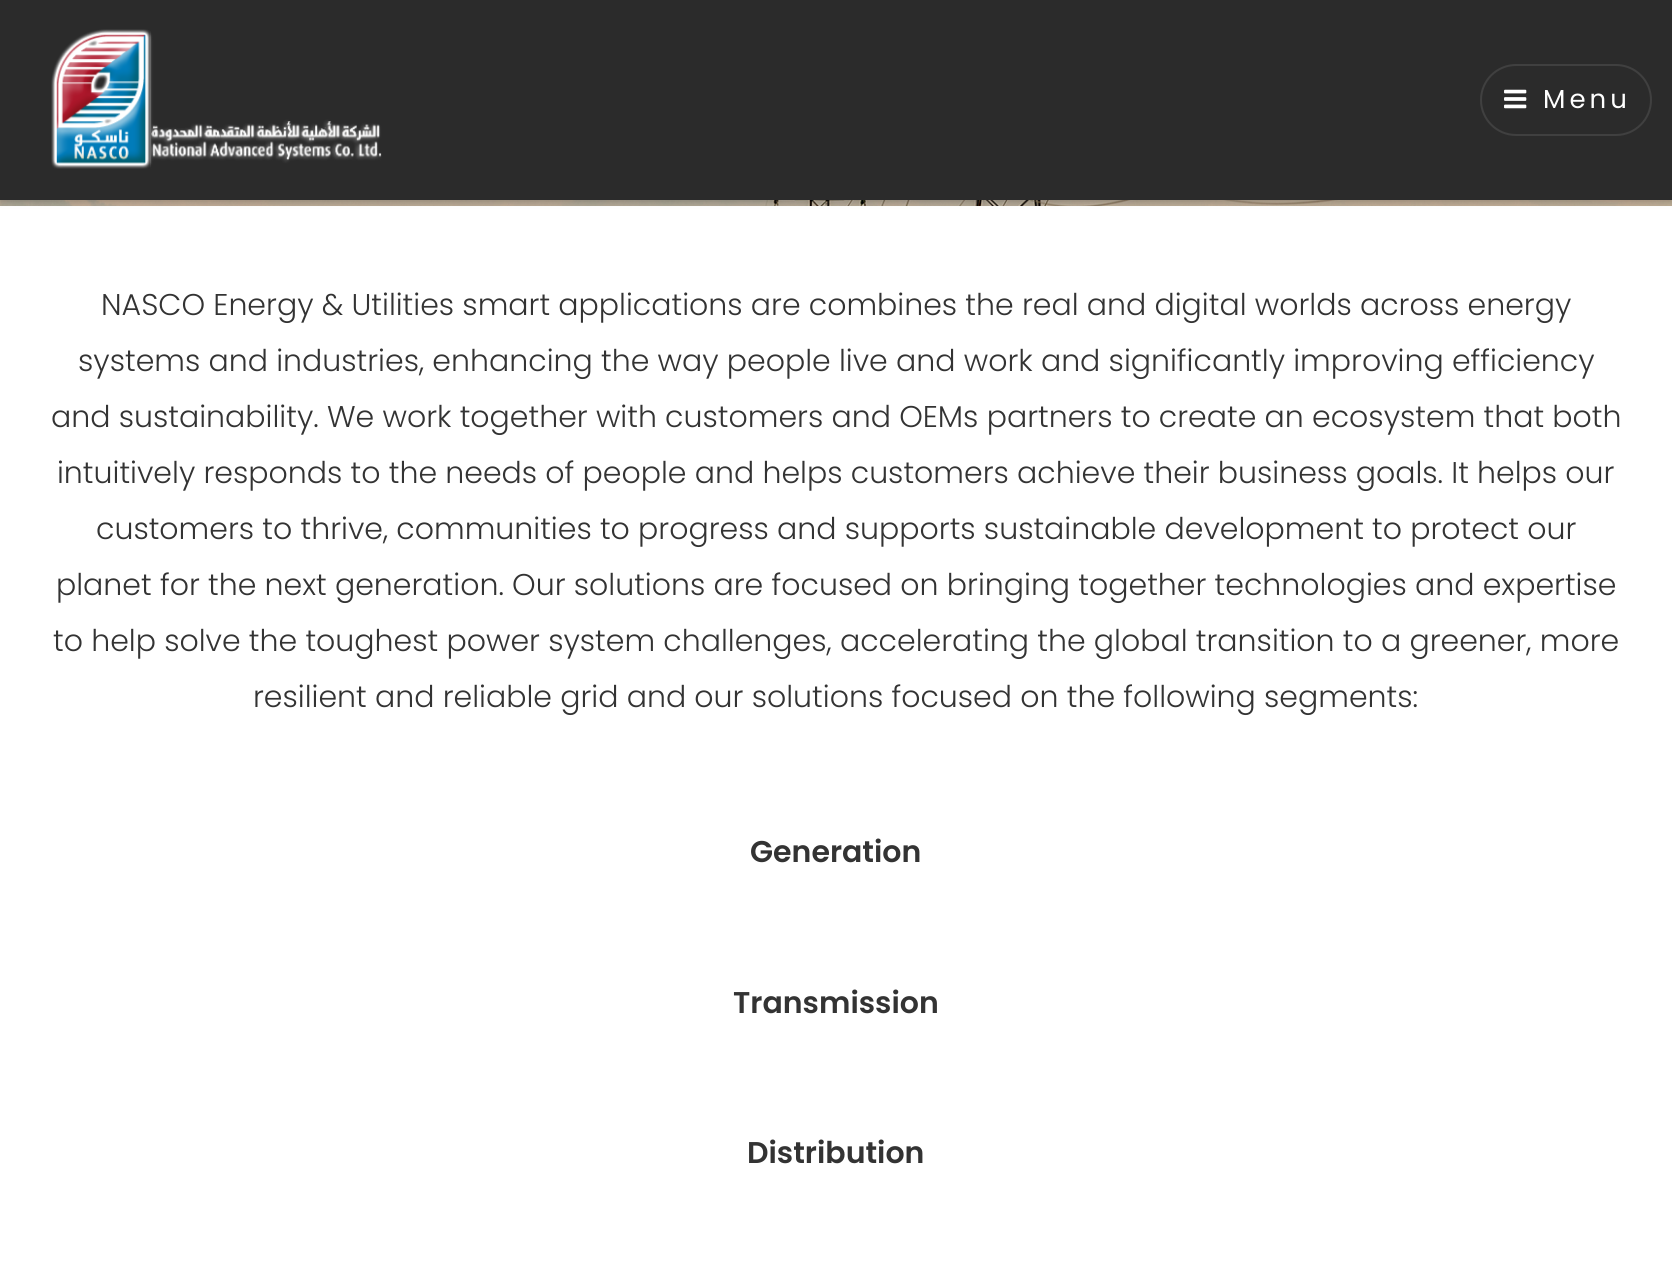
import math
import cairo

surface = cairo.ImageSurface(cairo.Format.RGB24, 1672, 1275)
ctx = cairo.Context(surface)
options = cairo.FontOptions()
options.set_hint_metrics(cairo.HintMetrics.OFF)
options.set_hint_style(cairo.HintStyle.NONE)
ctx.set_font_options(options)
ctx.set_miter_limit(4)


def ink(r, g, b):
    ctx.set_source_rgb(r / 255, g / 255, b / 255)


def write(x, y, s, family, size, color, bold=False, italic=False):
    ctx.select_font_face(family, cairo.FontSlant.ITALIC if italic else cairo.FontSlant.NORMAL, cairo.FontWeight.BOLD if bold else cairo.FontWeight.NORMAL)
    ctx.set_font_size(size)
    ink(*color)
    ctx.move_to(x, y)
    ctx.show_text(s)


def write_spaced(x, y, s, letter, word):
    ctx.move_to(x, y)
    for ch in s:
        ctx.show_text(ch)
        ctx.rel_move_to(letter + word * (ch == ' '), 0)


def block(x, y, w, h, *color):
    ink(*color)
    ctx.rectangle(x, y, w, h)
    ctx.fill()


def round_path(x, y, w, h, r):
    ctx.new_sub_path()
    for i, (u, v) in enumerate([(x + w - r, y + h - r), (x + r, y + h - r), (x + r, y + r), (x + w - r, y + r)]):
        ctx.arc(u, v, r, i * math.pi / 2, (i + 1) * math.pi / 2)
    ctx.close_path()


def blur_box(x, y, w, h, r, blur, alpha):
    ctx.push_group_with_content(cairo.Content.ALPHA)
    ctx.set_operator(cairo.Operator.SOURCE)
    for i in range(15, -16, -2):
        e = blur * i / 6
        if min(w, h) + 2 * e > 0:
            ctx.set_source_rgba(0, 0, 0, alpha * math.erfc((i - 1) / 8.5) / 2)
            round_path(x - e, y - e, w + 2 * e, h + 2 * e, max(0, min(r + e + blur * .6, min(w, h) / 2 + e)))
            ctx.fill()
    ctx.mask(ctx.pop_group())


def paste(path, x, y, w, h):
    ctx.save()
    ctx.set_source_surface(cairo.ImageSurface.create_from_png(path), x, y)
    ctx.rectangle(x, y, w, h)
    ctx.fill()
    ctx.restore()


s1 = dict(family="Poppins Light", size=30, color=(51, 51, 51))
s2 = dict(family="Poppins SemiBold", size=30, color=(51, 51, 51))

ink(255, 255, 255)
ctx.paint()
paste("pic3.png", 0, 200, 1672, 6)
ink(0, 0, 0)
blur_box(0, 2, 1672, 200, 0, 3, 0.2)
block(0, 0, 1672, 200, 43, 43, 43)
paste("pic1.png", 51, 29, 331, 140)
round_path(1481, 65, 170, 70, 35)
ink(64, 64, 64)
ctx.stroke()
paste("pic2.png", 1504, 89, 23, 20)
ctx.select_font_face("Poppins")
ctx.set_font_size(26)
ink(255, 255, 255)
write_spaced(1543, 108, "Menu", 4, 0)
write(101, 315, "NASCO Energy & Utilities smart applications are combines the real and digital worlds across energy", **s1)
write(78, 371, "systems and industries, enhancing the way people live and work and significantly improving efficiency", **s1)
write(51, 427, "and sustainability. We work together with customers and OEMs partners to create an ecosystem that both", **s1)
write(57, 483, "intuitively responds to the needs of people and helps customers achieve their business goals. It helps our", **s1)
write(96, 539, "customers to thrive, communities to progress and supports sustainable development to protect our", **s1)
write(56, 595, "planet for the next generation. Our solutions are focused on bringing together technologies and expertise", **s1)
write(53, 651, "to help solve the toughest power system challenges, accelerating the global transition to a greener, more", **s1)
write(253, 707, "resilient and reliable grid and our solutions focused on the following segments:", **s1)
write(750, 862, "Generation", **s2)
write(733, 1013, "Transmission", **s2)
write(747, 1163, "Distribution", **s2)
surface.write_to_png("screenshot.png")
